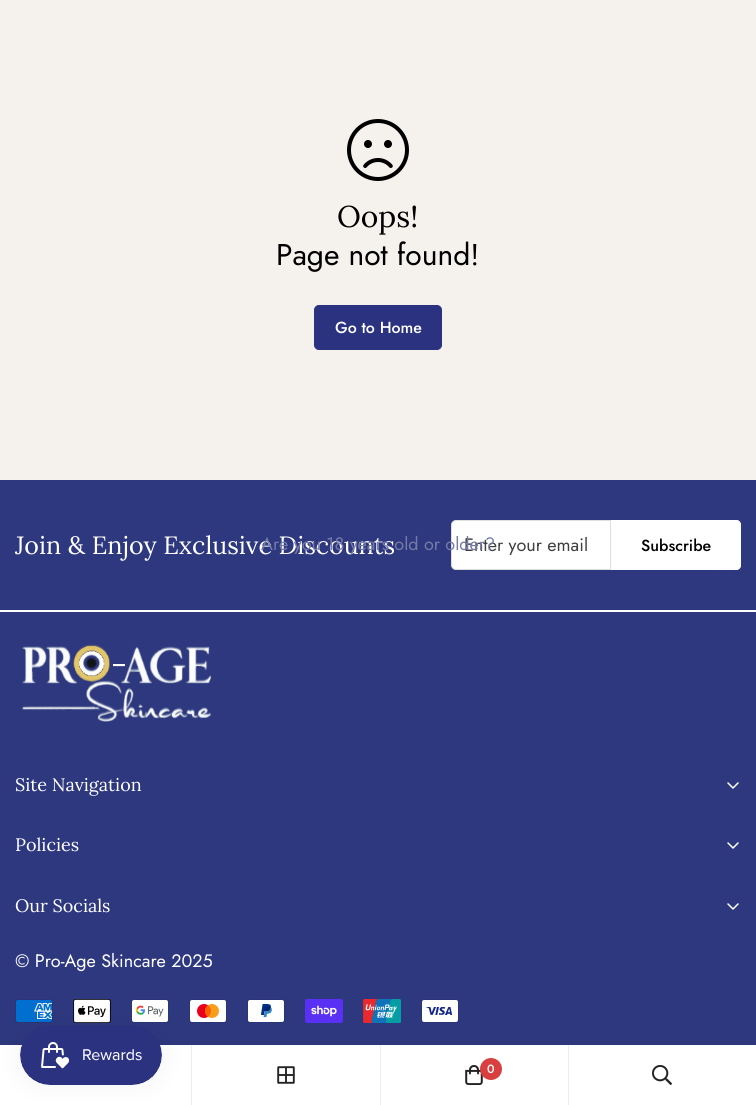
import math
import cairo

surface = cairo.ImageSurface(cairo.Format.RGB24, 756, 1105)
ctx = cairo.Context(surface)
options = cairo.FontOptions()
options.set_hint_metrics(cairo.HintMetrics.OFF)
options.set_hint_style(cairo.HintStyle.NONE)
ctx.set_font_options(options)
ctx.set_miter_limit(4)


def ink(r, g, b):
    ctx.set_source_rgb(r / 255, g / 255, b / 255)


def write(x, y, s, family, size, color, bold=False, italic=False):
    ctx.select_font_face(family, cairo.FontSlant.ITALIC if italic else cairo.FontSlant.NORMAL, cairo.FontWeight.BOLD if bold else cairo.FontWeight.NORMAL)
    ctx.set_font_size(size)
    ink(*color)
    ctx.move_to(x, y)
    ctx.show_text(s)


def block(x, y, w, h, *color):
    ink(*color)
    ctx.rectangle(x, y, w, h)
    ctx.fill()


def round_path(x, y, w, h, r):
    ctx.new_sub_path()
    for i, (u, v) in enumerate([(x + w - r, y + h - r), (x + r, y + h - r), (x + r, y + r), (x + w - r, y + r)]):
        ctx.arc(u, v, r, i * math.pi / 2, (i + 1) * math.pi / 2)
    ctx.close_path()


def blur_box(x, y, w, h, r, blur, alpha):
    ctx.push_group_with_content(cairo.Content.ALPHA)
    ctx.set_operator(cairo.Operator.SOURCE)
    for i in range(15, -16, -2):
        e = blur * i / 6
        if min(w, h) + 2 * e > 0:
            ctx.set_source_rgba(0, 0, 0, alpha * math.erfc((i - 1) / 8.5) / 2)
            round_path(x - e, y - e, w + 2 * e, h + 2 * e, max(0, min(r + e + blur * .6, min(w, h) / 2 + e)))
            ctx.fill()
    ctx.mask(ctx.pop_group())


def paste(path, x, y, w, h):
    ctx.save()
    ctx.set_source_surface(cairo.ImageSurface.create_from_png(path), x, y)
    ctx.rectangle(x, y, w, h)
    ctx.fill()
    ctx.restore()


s1 = dict(family="Lora", size=30, color=(0, 0, 0))
s2 = dict(family="Jost", size=30, color=(0, 0, 0))
s3 = dict(family="Jost Medium", size=16, color=(255, 255, 255))
s4 = dict(family="Lora", size=25, color=(255, 255, 255))
s5 = dict(family="Jost", size=18, color=(64, 64, 64))
s6 = dict(family="Jost Medium", size=16, color=(0, 0, 0))
s7 = dict(family="Jost", size=18, color=(117, 123, 167))
s8 = dict(family="Lora", size=18, color=(255, 255, 255))
s9 = dict(family="Jost", size=18, color=(255, 255, 255))
s10 = dict(family="Jost Medium", size=12, color=(255, 255, 255))

ink(255, 255, 255)
ctx.paint()
block(0, 0, 756, 480, 245, 241, 237)
paste("pic1.png", 347, 119, 62, 62)
write(337, 227, "Oops!", **s1)
write(276, 265, "Page not found!", **s2)
ink(43, 51, 129)
round_path(314.5, 305.5, 127, 44, 4.5)
ctx.fill_preserve()
ctx.set_line_width(1)
ctx.stroke()
write(335, 333, "Go to Home", **s3)
block(0, 480, 756, 130, 46, 56, 127)
write(15, 554, "Join & Enjoy Exclusive Discounts", **s4)
round_path(451.5, 520.5, 289, 49, 4.5)
ctx.fill_preserve()
ink(222, 222, 222)
ctx.stroke()
write(464, 551, "Enter your email", **s5)
ink(255, 255, 255)
ctx.new_path()
ctx.move_to(611, 520)
ctx.line_to(736, 520)
ctx.curve_to(739, 520, 741, 522, 741, 525)
ctx.line_to(741, 565)
ctx.curve_to(741, 568, 739, 570, 736, 570)
ctx.line_to(611, 570)
ctx.close_path()
ctx.fill()
block(610, 520, 1, 50, 222, 222, 222)
write(641, 551, "Subscribe", **s6)
write(261, 550, "Are you 18 years old or older?", **s7)
block(0, 612, 756, 433, 46, 56, 127)
paste("pic2.png", 22, 644, 190, 78)
write(15, 791, "Site Navigation", **s8)
paste("pic3.png", 727, 782, 12, 7)
write(15, 851, "Policies", **s8)
paste("pic3.png", 727, 842, 12, 7)
write(15, 912, "Our Socials", **s8)
paste("pic3.png", 727, 903, 12, 7)
write(15, 967, "© Pro-Age Skincare 2025", **s9)
paste("pic4.png", 15, 999, 38, 24)
paste("pic5.png", 73, 999, 38, 24)
paste("pic6.png", 131, 999, 38, 24)
paste("pic7.png", 189, 999, 38, 24)
paste("pic8.png", 247, 999, 38, 24)
paste("pic9.png", 305, 999, 38, 24)
paste("pic10.png", 363, 999, 38, 24)
paste("pic11.png", 421, 999, 38, 24)
ink(34, 34, 34)
blur_box(0, 1045, 756, 60, 0, 5, 0.12)
block(0, 1045, 756, 60, 255, 255, 255)
block(191, 1045, 1, 60, 238, 238, 238)
ink(0, 0, 0)
blur_box(20, 1025, 142, 60, 30, 12.5, 0.05)
paste("pic12.png", 20, 1025, 142, 60)
block(380, 1045, 1, 60, 238, 238, 238)
paste("pic13.png", 277, 1066, 18, 18)
block(568, 1045, 1, 60, 238, 238, 238)
paste("pic14.png", 465, 1065, 18, 20)
ink(218, 63, 63)
ctx.arc(491, 1069, 11, 0, 2 * math.pi)
ctx.fill()
write(487, 1073, "0", **s10)
paste("pic15.png", 652, 1065, 20, 20)
surface.write_to_png("screenshot.png")
